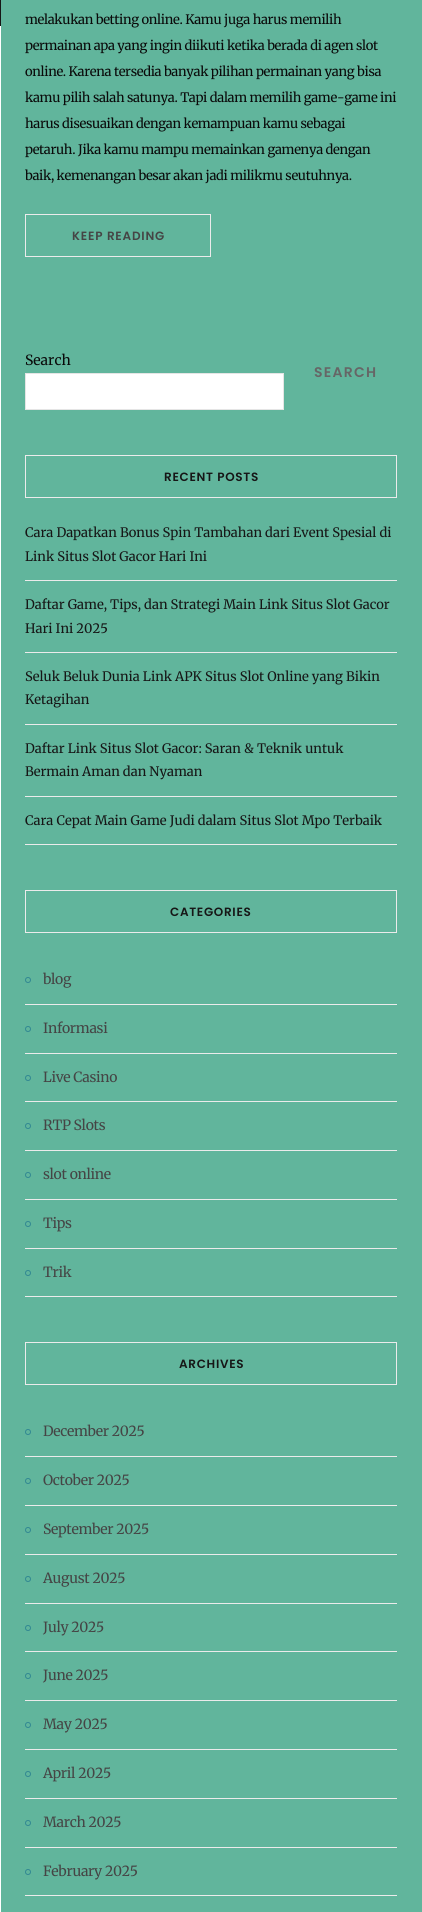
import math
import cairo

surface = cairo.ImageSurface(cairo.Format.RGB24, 422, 1912)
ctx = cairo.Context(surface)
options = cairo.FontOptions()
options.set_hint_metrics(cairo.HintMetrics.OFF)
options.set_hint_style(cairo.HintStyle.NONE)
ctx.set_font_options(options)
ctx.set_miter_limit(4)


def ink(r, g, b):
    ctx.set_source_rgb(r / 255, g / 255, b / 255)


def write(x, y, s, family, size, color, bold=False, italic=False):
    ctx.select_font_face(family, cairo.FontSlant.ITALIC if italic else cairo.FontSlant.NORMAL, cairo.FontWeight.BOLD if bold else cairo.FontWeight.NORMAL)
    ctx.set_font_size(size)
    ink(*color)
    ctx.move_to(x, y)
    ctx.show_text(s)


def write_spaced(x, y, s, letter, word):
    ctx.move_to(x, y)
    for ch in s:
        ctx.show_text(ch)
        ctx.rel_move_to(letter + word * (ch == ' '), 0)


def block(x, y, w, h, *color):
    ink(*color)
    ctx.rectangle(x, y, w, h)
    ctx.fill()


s1 = dict(family="Merriweather", size=14, color=(10, 10, 10))
s2 = dict(family="Merriweather", size=13, color=(22, 22, 22))

ink(97, 181, 156)
ctx.paint()
block(0, 26, 1, 1886, 255, 255, 255)
block(0, 0, 1, 26, 22, 22, 22)
ctx.select_font_face("Merriweather")
ctx.set_font_size(13)
ink(10, 10, 10)
write_spaced(25, 24, "melakukan betting online. Kamu juga harus memilih", -0.33, 0)
write_spaced(25, 50, "permainan apa yang ingin diikuti ketika berada di agen slot", -0.33, 0)
write_spaced(25, 76, "online. Karena tersedia banyak pilihan permainan yang bisa", -0.33, 0)
write_spaced(25, 102, "kamu pilih salah satunya. Tapi dalam memilih game-game ini", -0.33, 0)
write_spaced(25, 128, "harus disesuaikan dengan kemampuan kamu sebagai", -0.33, 0)
write_spaced(25, 154, "petaruh. Jika kamu mampu memainkan gamenya dengan", -0.33, 0)
write_spaced(25, 180, "baik, kemenangan besar akan jadi milikmu seutuhnya.", -0.33, 0)
ctx.rectangle(25.5, 214.5, 185, 42)
ink(235, 235, 235)
ctx.set_line_width(1)
ctx.stroke()
ctx.select_font_face("Poppins SemiBold")
ctx.set_font_size(12)
ink(69, 69, 69)
write_spaced(72, 240, "KEEP READING", 0.8, 0)
write(25, 365, "Search", **s1)
ink(255, 255, 255)
ctx.rectangle(25.5, 373.5, 258, 36)
ctx.fill_preserve()
ink(229, 229, 229)
ctx.stroke()
ctx.select_font_face("Poppins SemiBold")
ink(102, 102, 102)
write_spaced(314, 377, "SEARCH", 1.25, 0)
ctx.rectangle(25.5, 455.5, 371, 42)
ink(235, 235, 235)
ctx.stroke()
ctx.set_font_size(12)
ink(22, 22, 22)
write_spaced(164, 481, "RECENT POSTS", 0.7, 0)
block(25, 580, 372, 1, 235, 235, 235)
write(25, 537, "Cara Dapatkan Bonus Spin Tambahan dari Event Spesial di", **s2)
write(25, 561, "Link Situs Slot Gacor Hari Ini", **s2)
block(25, 652, 372, 1, 235, 235, 235)
write(25, 609, "Daftar Game, Tips, dan Strategi Main Link Situs Slot Gacor", **s2)
write(25, 633, "Hari Ini 2025", **s2)
block(25, 724, 372, 1, 235, 235, 235)
write(25, 681, "Seluk Beluk Dunia Link APK Situs Slot Online yang Bikin", **s2)
write(25, 704, "Ketagihan", **s2)
block(25, 796, 372, 1, 235, 235, 235)
write(25, 753, "Daftar Link Situs Slot Gacor: Saran & Teknik untuk", **s2)
write(25, 776, "Bermain Aman dan Nyaman", **s2)
block(25, 844, 372, 1, 235, 235, 235)
write(25, 825, "Cara Cepat Main Game Judi dalam Situs Slot Mpo Terbaik", **s2)
ctx.rectangle(25.5, 890.5, 371, 42)
ink(235, 235, 235)
ctx.stroke()
ctx.select_font_face("Poppins SemiBold")
ctx.set_font_size(12)
ink(22, 22, 22)
write_spaced(170, 916, "CATEGORIES", 0.7, 0)
block(25, 1004, 372, 1, 235, 235, 235)
ctx.new_path()
ctx.arc(28, 980, 2.5, 0, 2 * math.pi)
ink(49, 136, 146)
ctx.stroke()
ctx.select_font_face("Merriweather")
ctx.set_font_size(14)
ink(69, 69, 69)
write_spaced(43, 984, "blog", -0.3, 0)
block(25, 1053, 372, 1, 235, 235, 235)
ctx.new_path()
ctx.arc(28, 1029, 2.5, 0, 2 * math.pi)
ink(49, 136, 146)
ctx.stroke()
ink(69, 69, 69)
write_spaced(43, 1033, "Informasi", -0.3, 0)
block(25, 1101, 372, 1, 235, 235, 235)
ctx.new_path()
ctx.arc(28, 1078, 2.5, 0, 2 * math.pi)
ink(49, 136, 146)
ctx.stroke()
ink(69, 69, 69)
write_spaced(43, 1082, "Live Casino", -0.3, 0)
block(25, 1150, 372, 1, 235, 235, 235)
ctx.new_path()
ctx.arc(28, 1126, 2.5, 0, 2 * math.pi)
ink(49, 136, 146)
ctx.stroke()
ink(69, 69, 69)
write_spaced(43, 1130, "RTP Slots", -0.3, 0)
block(25, 1199, 372, 1, 235, 235, 235)
ctx.new_path()
ctx.arc(28, 1175, 2.5, 0, 2 * math.pi)
ink(49, 136, 146)
ctx.stroke()
ink(69, 69, 69)
write_spaced(43, 1179, "slot online", -0.3, 0)
block(25, 1248, 372, 1, 235, 235, 235)
ctx.new_path()
ctx.arc(28, 1224, 2.5, 0, 2 * math.pi)
ink(49, 136, 146)
ctx.stroke()
ink(69, 69, 69)
write_spaced(43, 1228, "Tips", -0.3, 0)
block(25, 1296, 372, 1, 235, 235, 235)
ctx.new_path()
ctx.arc(28, 1273, 2.5, 0, 2 * math.pi)
ink(49, 136, 146)
ctx.stroke()
ink(69, 69, 69)
write_spaced(43, 1277, "Trik", -0.3, 0)
ctx.rectangle(25.5, 1342.5, 371, 42)
ink(235, 235, 235)
ctx.stroke()
ctx.select_font_face("Poppins SemiBold")
ctx.set_font_size(12)
ink(22, 22, 22)
write_spaced(179, 1368, "ARCHIVES", 0.7, 0)
block(25, 1456, 372, 1, 235, 235, 235)
ctx.new_path()
ctx.arc(28, 1432, 2.5, 0, 2 * math.pi)
ink(49, 136, 146)
ctx.stroke()
ctx.select_font_face("Merriweather")
ctx.set_font_size(14)
ink(69, 69, 69)
write_spaced(43, 1436, "December 2025", -0.3, 0)
block(25, 1505, 372, 1, 235, 235, 235)
ctx.new_path()
ctx.arc(28, 1481, 2.5, 0, 2 * math.pi)
ink(49, 136, 146)
ctx.stroke()
ink(69, 69, 69)
write_spaced(43, 1485, "October 2025", -0.3, 0)
block(25, 1554, 372, 1, 235, 235, 235)
ctx.new_path()
ctx.arc(28, 1530, 2.5, 0, 2 * math.pi)
ink(49, 136, 146)
ctx.stroke()
ink(69, 69, 69)
write_spaced(43, 1534, "September 2025", -0.3, 0)
block(25, 1603, 372, 1, 235, 235, 235)
ctx.new_path()
ctx.arc(28, 1579, 2.5, 0, 2 * math.pi)
ink(49, 136, 146)
ctx.stroke()
ink(69, 69, 69)
write_spaced(43, 1583, "August 2025", -0.3, 0)
block(25, 1651, 372, 1, 235, 235, 235)
ctx.new_path()
ctx.arc(28, 1628, 2.5, 0, 2 * math.pi)
ink(49, 136, 146)
ctx.stroke()
ink(69, 69, 69)
write_spaced(43, 1632, "July 2025", -0.3, 0)
block(25, 1700, 372, 1, 235, 235, 235)
ctx.new_path()
ctx.arc(28, 1676, 2.5, 0, 2 * math.pi)
ink(49, 136, 146)
ctx.stroke()
ink(69, 69, 69)
write_spaced(43, 1680, "June 2025", -0.3, 0)
block(25, 1749, 372, 1, 235, 235, 235)
ctx.new_path()
ctx.arc(28, 1725, 2.5, 0, 2 * math.pi)
ink(49, 136, 146)
ctx.stroke()
ink(69, 69, 69)
write_spaced(43, 1729, "May 2025", -0.3, 0)
block(25, 1798, 372, 1, 235, 235, 235)
ctx.new_path()
ctx.arc(28, 1774, 2.5, 0, 2 * math.pi)
ink(49, 136, 146)
ctx.stroke()
ink(69, 69, 69)
write_spaced(43, 1778, "April 2025", -0.3, 0)
block(25, 1847, 372, 1, 235, 235, 235)
ctx.new_path()
ctx.arc(28, 1823, 2.5, 0, 2 * math.pi)
ink(49, 136, 146)
ctx.stroke()
ink(69, 69, 69)
write_spaced(43, 1827, "March 2025", -0.3, 0)
block(25, 1895, 372, 1, 235, 235, 235)
ctx.new_path()
ctx.arc(28, 1872, 2.5, 0, 2 * math.pi)
ink(49, 136, 146)
ctx.stroke()
ink(69, 69, 69)
write_spaced(43, 1876, "February 2025", -0.3, 0)
surface.write_to_png("screenshot.png")
